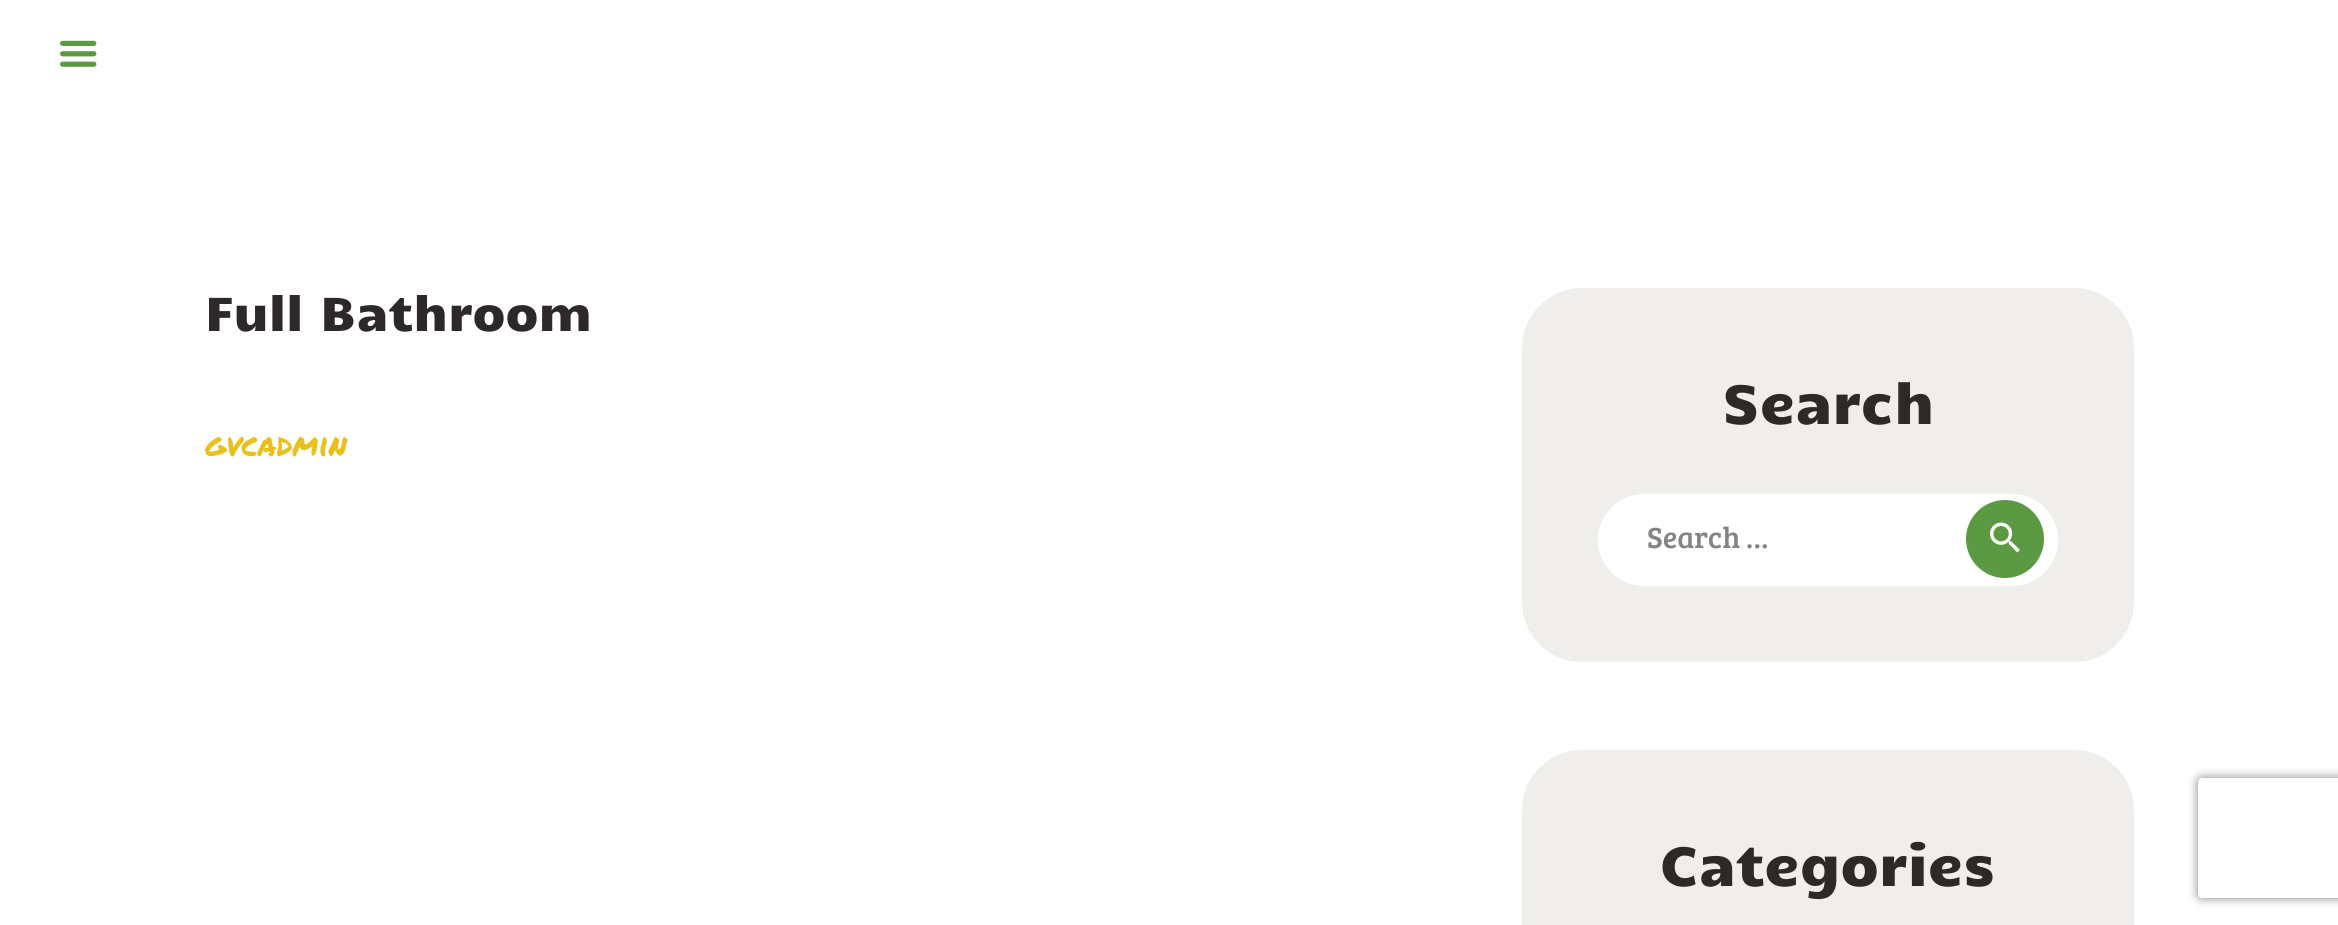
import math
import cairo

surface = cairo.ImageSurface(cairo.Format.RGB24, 2338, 925)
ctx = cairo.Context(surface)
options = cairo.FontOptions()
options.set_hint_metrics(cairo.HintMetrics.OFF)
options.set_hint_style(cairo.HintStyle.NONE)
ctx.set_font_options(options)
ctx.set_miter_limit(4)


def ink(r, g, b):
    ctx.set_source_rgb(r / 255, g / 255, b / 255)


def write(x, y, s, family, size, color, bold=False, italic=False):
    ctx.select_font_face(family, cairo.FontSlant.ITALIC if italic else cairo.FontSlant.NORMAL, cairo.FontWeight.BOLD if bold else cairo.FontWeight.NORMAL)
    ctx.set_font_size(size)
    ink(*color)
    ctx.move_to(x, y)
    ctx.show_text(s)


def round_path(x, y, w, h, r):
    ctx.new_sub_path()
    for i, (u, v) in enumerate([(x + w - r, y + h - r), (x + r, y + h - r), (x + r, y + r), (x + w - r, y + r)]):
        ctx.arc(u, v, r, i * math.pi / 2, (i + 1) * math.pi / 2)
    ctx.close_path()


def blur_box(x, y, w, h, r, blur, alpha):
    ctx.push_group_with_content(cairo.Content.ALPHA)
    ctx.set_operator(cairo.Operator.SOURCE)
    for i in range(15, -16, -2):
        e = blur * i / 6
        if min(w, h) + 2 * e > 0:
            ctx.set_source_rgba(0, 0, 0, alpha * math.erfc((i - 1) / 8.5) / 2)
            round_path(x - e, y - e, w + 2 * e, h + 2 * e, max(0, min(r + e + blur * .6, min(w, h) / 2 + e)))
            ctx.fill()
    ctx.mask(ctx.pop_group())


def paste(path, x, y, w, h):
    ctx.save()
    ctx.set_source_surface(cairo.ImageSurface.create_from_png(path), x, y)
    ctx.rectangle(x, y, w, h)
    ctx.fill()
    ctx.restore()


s1 = dict(family="Candal", size=48, color=(45, 41, 41))
s2 = dict(family="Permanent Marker", size=32, color=(232, 193, 30))
s3 = dict(family="Candal", size=55.75, color=(45, 41, 41))
s4 = dict(family="Bree Serif", size=30, color=(132, 132, 132))

ink(255, 255, 255)
ctx.paint()
paste("pic1.png", 60, 40, 37, 27)
write(205, 331, "Full Bathroom", **s1)
write(205, 456, "gvcadmin", **s2)
ink(239, 238, 234)
round_path(1522, 288, 612, 374, 60)
ctx.fill()
write(1722, 424, "Search", **s3)
ink(255, 255, 255)
round_path(1600, 496, 456, 88, 44)
ctx.fill_preserve()
ctx.set_line_width(4)
ctx.stroke()
write(1647, 548, "Search …", **s4)
ink(91, 154, 66)
ctx.new_path()
ctx.arc(2005, 539, 39, 0, 2 * math.pi)
ctx.fill()
paste("pic2.png", 1990, 522, 30, 31)
ink(239, 238, 234)
round_path(1522, 750, 612, 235, 60)
ctx.fill()
write(1660, 886, "Categories", **s3)
ctx.save()
ctx.set_fill_rule(cairo.FillRule.EVEN_ODD)
ctx.new_path()
ctx.move_to(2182, 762)
ctx.line_to(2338, 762)
ctx.line_to(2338, 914)
ctx.line_to(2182, 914)
ctx.close_path()
ctx.move_to(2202, 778)
ctx.line_to(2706, 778)
ctx.curve_to(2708, 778, 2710, 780, 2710, 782)
ctx.line_to(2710, 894)
ctx.curve_to(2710, 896, 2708, 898, 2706, 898)
ctx.line_to(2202, 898)
ctx.curve_to(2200, 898, 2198, 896, 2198, 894)
ctx.line_to(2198, 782)
ctx.curve_to(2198, 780, 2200, 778, 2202, 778)
ctx.close_path()
ctx.clip()
ink(128, 128, 128)
blur_box(2198, 778, 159, 120, 4, 5, 1)
ctx.restore()
surface.write_to_png("screenshot.png")
